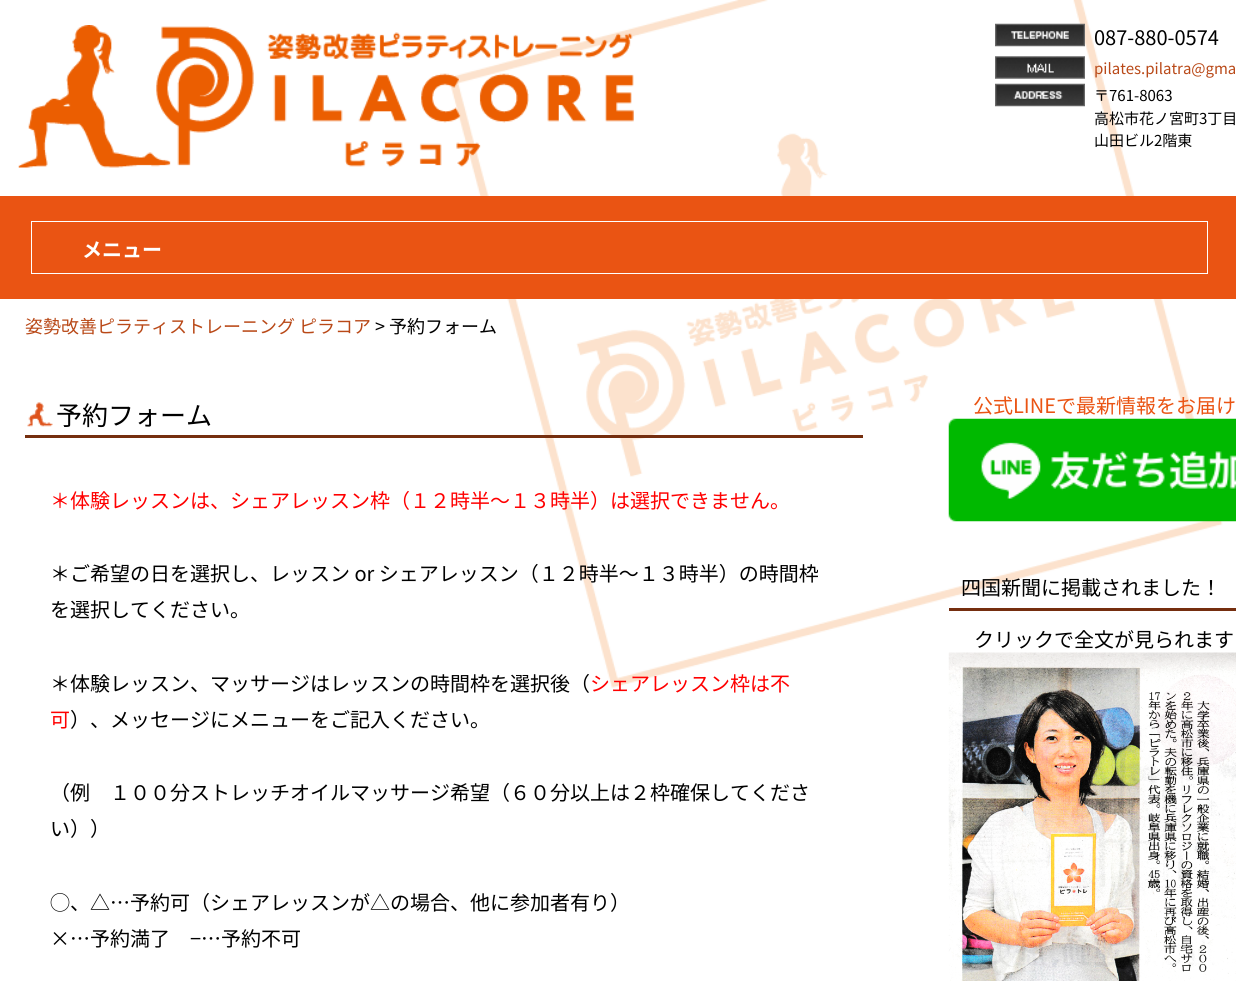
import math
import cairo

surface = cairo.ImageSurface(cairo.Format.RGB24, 1236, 981)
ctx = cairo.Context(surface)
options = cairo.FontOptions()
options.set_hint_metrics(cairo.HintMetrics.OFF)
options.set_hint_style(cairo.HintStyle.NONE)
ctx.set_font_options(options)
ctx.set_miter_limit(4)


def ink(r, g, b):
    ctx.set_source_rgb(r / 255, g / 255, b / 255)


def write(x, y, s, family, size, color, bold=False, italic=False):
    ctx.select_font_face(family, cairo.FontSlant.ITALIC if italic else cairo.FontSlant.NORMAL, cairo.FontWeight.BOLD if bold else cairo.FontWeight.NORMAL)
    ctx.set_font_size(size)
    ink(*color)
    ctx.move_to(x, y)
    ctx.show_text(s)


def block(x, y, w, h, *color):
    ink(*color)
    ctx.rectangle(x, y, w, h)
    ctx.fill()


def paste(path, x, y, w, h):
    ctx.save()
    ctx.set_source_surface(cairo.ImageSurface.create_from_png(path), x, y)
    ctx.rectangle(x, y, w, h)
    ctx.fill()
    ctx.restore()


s1 = dict(family="Noto Sans JP", size=20, color=(0, 0, 0))
s2 = dict(family="Noto Sans JP", size=15, color=(185, 73, 24))
s3 = dict(family="Noto Sans JP", size=15, color=(0, 0, 0))
s4 = dict(family="Noto Sans JP", size=20, color=(255, 255, 255), bold=True)
s5 = dict(family="Noto Sans JP", size=18, color=(185, 73, 24))
s6 = dict(family="Noto Sans JP", size=18, color=(0, 0, 0))
s7 = dict(family="Noto Sans JP", size=26, color=(0, 0, 0))
s8 = dict(family="Noto Sans JP", size=20, color=(255, 0, 0))
s9 = dict(family="Noto Sans JP", size=20, color=(234, 84, 19))

ink(255, 255, 255)
ctx.paint()
paste("pic1.png", 448, 0, 775, 688)
paste("pic2.png", 18, 25, 616, 143)
paste("pic3.png", 995, 23, 90, 24)
write(1094, 45, "087-880-0574", **s1)
paste("pic4.png", 995, 56, 90, 23)
write(1094, 74, "pilates.pilatra@gma", **s2)
paste("pic5.png", 995, 83, 90, 24)
write(1094, 101, "〒761-8063", **s3)
write(1094, 124, "高松市花ノ宮町3丁目", **s3)
write(1094, 146, "山田ビル2階東", **s3)
block(0, 196, 1236, 103, 234, 84, 19)
ctx.rectangle(31.5, 221.5, 1176, 52)
ink(255, 255, 255)
ctx.set_line_width(1)
ctx.stroke()
write(82, 257, "メニュー", **s4)
write(25, 333, "姿勢改善ピラティストレーニング ピラコア", **s5)
write(375, 333, "> 予約フォーム", **s6)
paste("pic6.png", 27, 402, 26, 25)
block(25, 435, 838, 3, 117, 46, 15)
write(56, 425, "予約フォーム", **s7)
write(50, 508, "＊体験レッスンは、シェアレッスン枠（１２時半～１３時半）は選択できません。", **s8)
write(50, 581, "＊ご希望の日を選択し、レッスン or シェアレッスン（１２時半～１３時半）の時間枠", **s1)
write(50, 617, "を選択してください。", **s1)
write(50, 691, "＊体験レッスン、マッサージはレッスンの時間枠を選択後（", **s1)
write(590, 691, "シェアレッスン枠は不", **s8)
write(50, 727, "可", **s8)
write(70, 727, "）、メッセージにメニューをご記入ください。", **s1)
write(50, 800, "（例　１００分ストレッチオイルマッサージ希望（６０分以上は２枠確保してくださ", **s1)
write(50, 836, "い））", **s1)
write(50, 910, "◯、△…予約可（シェアレッスンが△の場合、他に参加者有り）", **s1)
write(50, 946, "×…予約満了　−…予約不可", **s1)
write(973, 413, "公式LINEで最新情報をお届け", **s9)
paste("pic7.png", 948, 418, 288, 104)
block(949, 608, 287, 3, 117, 46, 15)
write(961, 595, "四国新聞に掲載されました！", **s1)
write(974, 647, "クリックで全文が見られます", **s1)
paste("pic8.png", 948, 652, 288, 329)
surface.write_to_png("screenshot.png")
